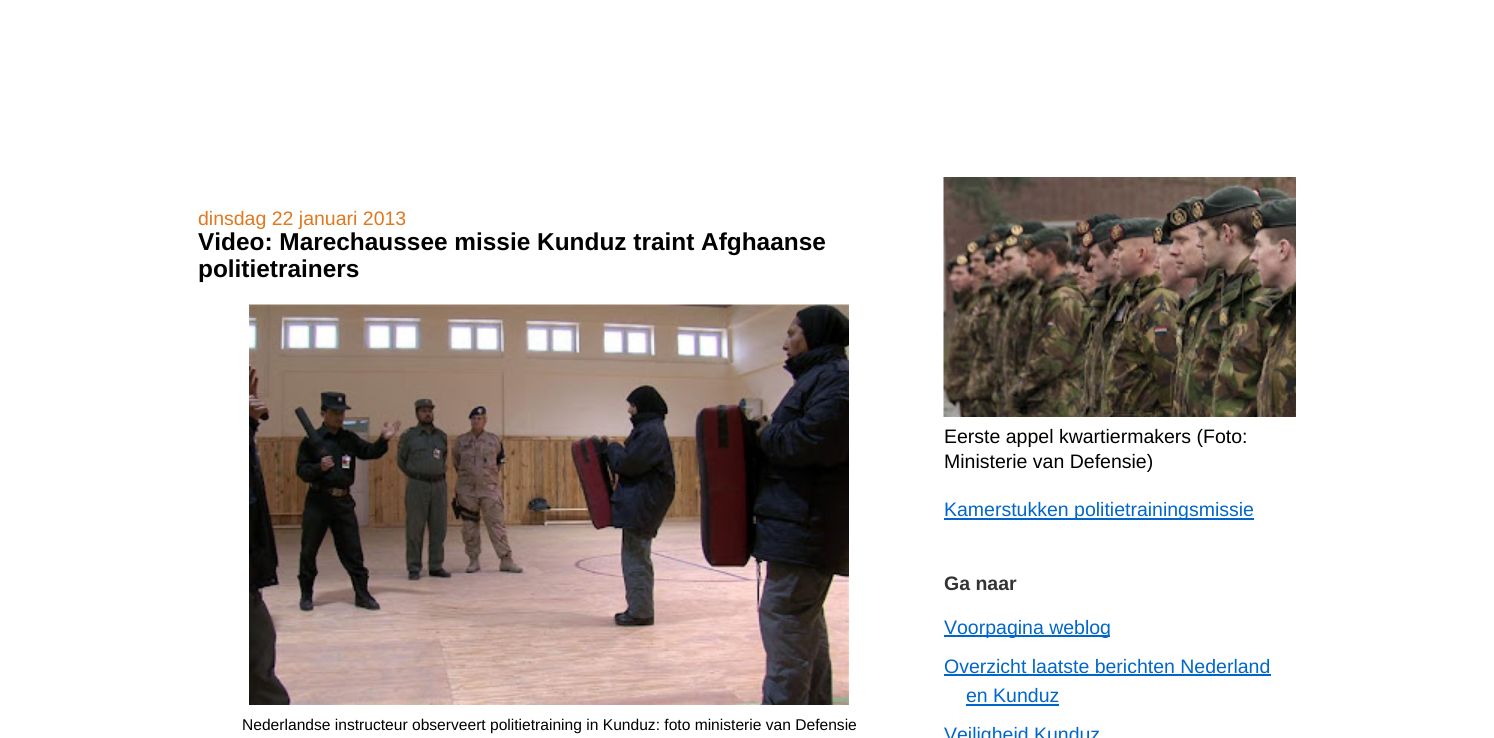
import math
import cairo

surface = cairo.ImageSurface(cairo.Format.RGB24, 1494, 738)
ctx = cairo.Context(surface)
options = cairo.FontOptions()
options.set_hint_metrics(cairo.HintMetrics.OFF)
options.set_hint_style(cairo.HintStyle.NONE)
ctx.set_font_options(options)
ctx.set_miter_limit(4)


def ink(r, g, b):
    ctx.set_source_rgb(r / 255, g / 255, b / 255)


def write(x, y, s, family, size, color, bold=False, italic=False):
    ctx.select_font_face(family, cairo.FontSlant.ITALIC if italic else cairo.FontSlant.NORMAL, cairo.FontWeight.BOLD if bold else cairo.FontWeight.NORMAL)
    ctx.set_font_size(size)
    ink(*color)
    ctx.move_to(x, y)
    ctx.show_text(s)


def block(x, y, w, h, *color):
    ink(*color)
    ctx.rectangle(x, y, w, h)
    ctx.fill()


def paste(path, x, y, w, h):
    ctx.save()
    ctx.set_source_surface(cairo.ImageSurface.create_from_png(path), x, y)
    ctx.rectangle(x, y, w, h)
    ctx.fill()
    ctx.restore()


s1 = dict(family="Liberation Sans", size=19.5, color=(225, 119, 30))
s2 = dict(family="Liberation Sans", size=24.4, color=(0, 0, 0), bold=True)
s3 = dict(family="Liberation Sans", size=15.6, color=(0, 0, 0))
s4 = dict(family="Liberation Sans", size=19.5, color=(0, 0, 0))
s5 = dict(family="Liberation Sans", size=19.5, color=(0, 102, 204))
s6 = dict(family="Liberation Sans", size=19.5, color=(51, 51, 51), bold=True)

ink(255, 255, 255)
ctx.paint()
write(198, 225, "dinsdag 22 januari 2013", **s1)
write(198, 250, "Video: Marechaussee missie Kunduz traint Afghaanse", **s2)
write(198, 277, "politietrainers", **s2)
paste("pic1.png", 249, 304, 600, 401)
write(242, 730, "Nederlandse instructeur observeert politietraining in Kunduz: foto ministerie van Defensie", **s3)
paste("pic2.png", 943, 177, 353, 240)
write(944, 443, "Eerste appel kwartiermakers (Foto:", **s4)
write(944, 468, "Ministerie van Defensie)", **s4)
block(944, 518, 310, 2, 0, 102, 204)
write(944, 516, "Kamerstukken politietrainingsmissie", **s5)
write(944, 590, "Ga naar", **s6)
block(944, 635, 166, 2, 0, 102, 204)
write(944, 634, "Voorpagina weblog", **s5)
write(944, 673, "Overzicht laatste berichten Nederland", **s5)
block(944, 674, 327, 2, 0, 102, 204)
write(966, 702, "en Kunduz", **s5)
block(966, 704, 93, 2, 0, 102, 204)
write(944, 741, "Veiligheid Kunduz", **s5)
surface.write_to_png("screenshot.png")
